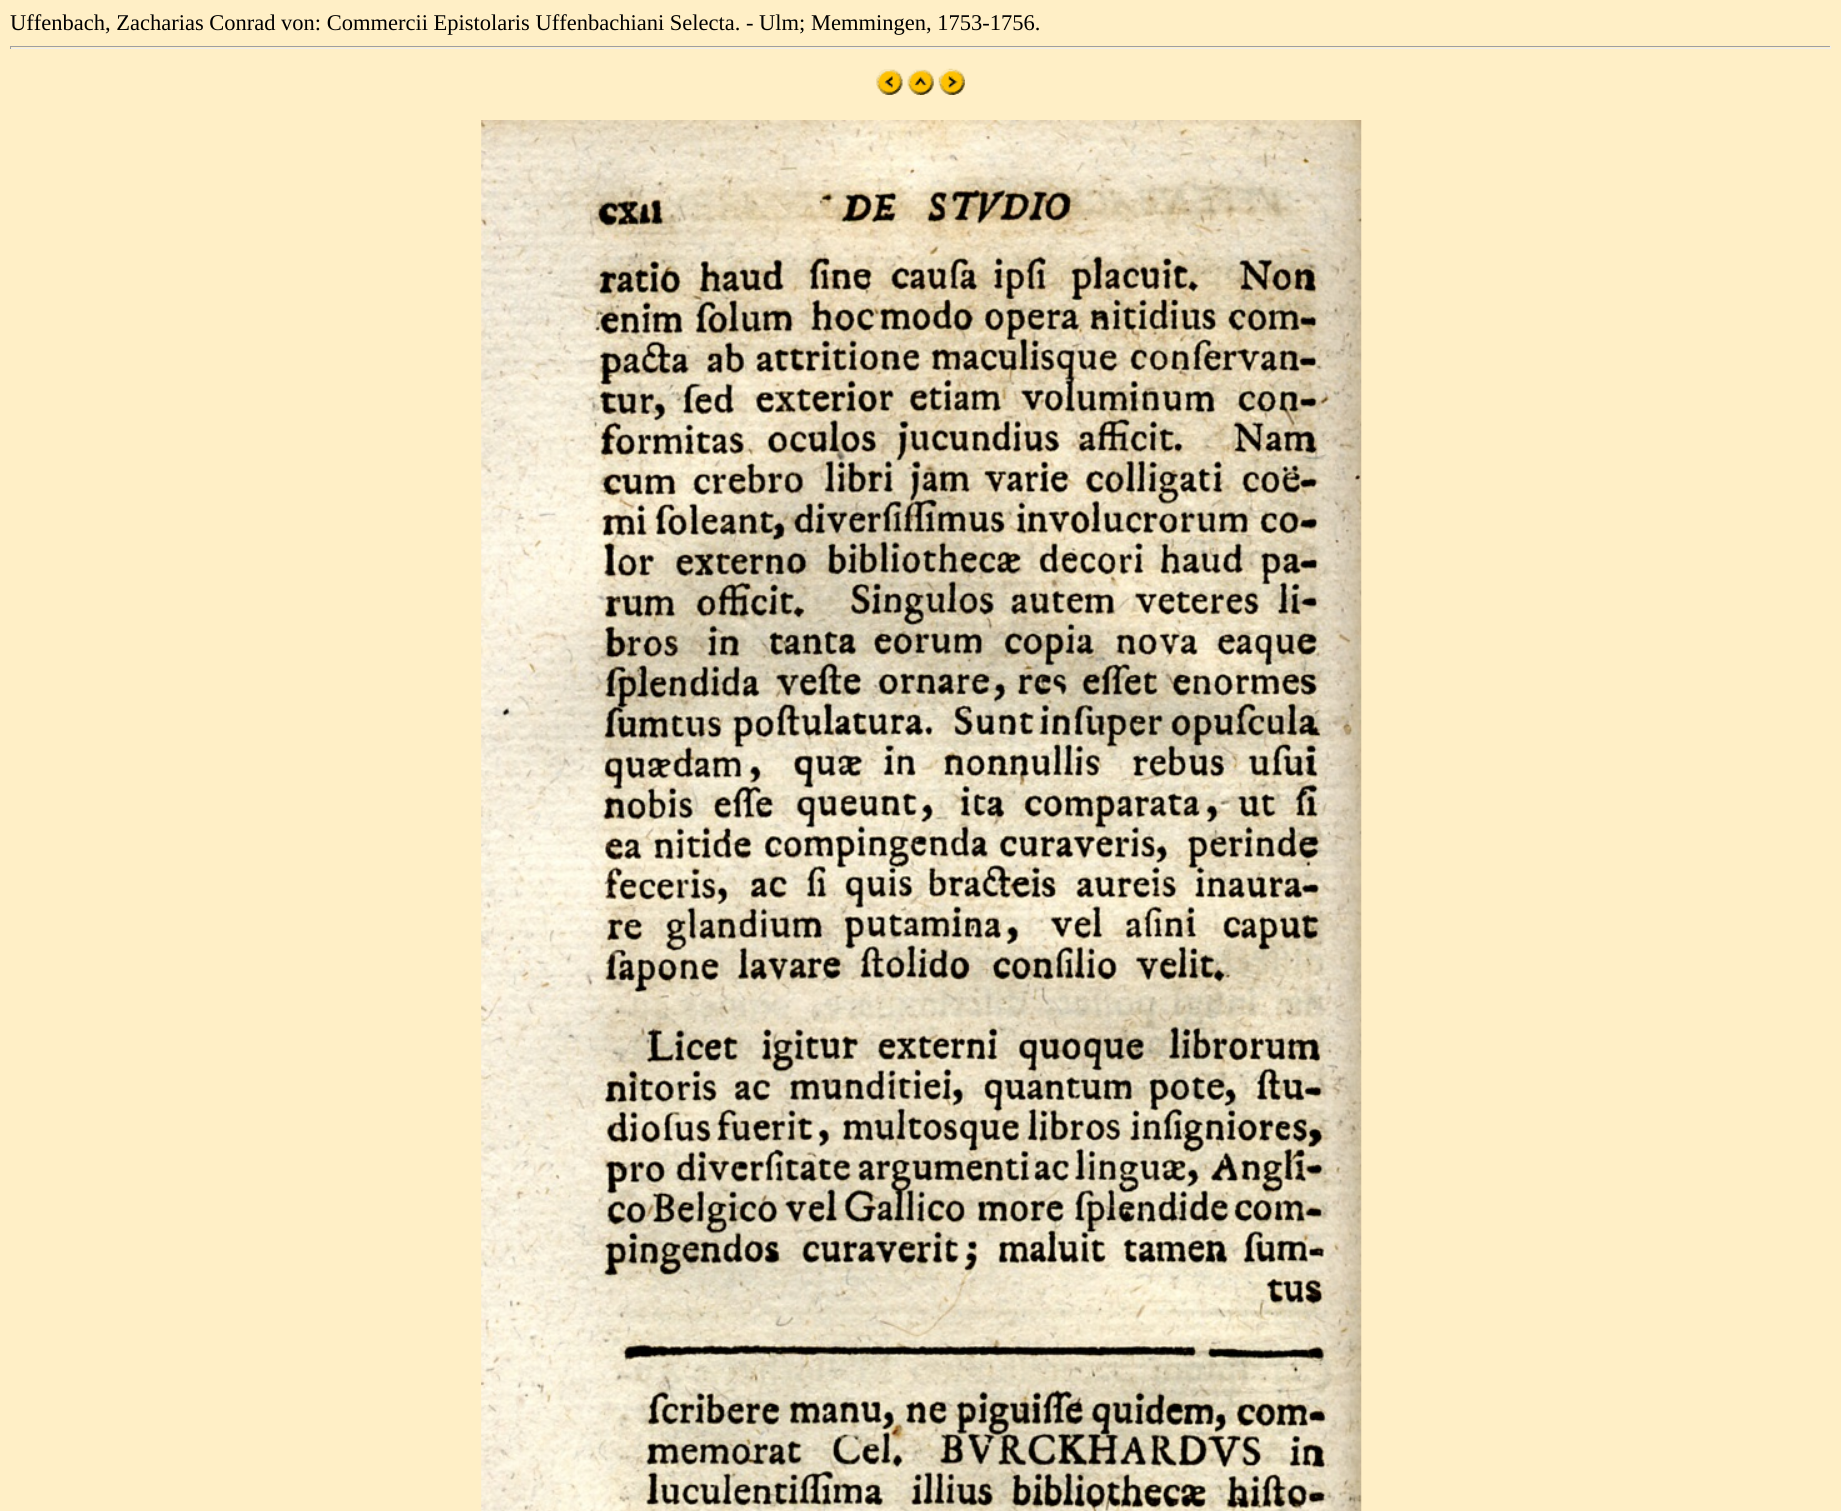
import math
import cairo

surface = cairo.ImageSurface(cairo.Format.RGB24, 1841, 1511)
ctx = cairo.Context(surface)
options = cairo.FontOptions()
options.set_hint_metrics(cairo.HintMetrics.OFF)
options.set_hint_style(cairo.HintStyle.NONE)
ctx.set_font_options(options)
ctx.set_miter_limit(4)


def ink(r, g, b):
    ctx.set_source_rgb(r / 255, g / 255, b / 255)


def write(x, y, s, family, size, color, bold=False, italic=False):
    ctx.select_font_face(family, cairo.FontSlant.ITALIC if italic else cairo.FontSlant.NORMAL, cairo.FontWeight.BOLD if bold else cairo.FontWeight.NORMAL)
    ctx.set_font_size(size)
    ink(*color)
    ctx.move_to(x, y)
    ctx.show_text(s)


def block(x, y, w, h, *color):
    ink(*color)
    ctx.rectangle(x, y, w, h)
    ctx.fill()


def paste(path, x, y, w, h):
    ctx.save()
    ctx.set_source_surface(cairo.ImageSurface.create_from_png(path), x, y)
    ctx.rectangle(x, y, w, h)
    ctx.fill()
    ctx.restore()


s1 = dict(family="Liberation Serif", size=22.5, color=(0, 0, 0))

ink(255, 239, 198)
ctx.paint()
write(10, 30, "Uffenbach, Zacharias Conrad von: Commercii Epistolaris Uffenbachiani Selecta. - Ulm; Memmingen, 1753-1756.", **s1)
block(10, 46, 1821, 1, 159, 159, 159)
block(1830, 46, 1, 3, 238, 238, 238)
block(10, 48, 1821, 1, 238, 238, 238)
block(10, 46, 1, 3, 159, 159, 159)
paste("pic1.png", 876, 69, 27, 26)
paste("pic2.png", 907, 69, 27, 26)
paste("pic3.png", 938, 68, 27, 27)
paste("pic4.png", 481, 120, 881, 1391)
surface.write_to_png("screenshot.png")
